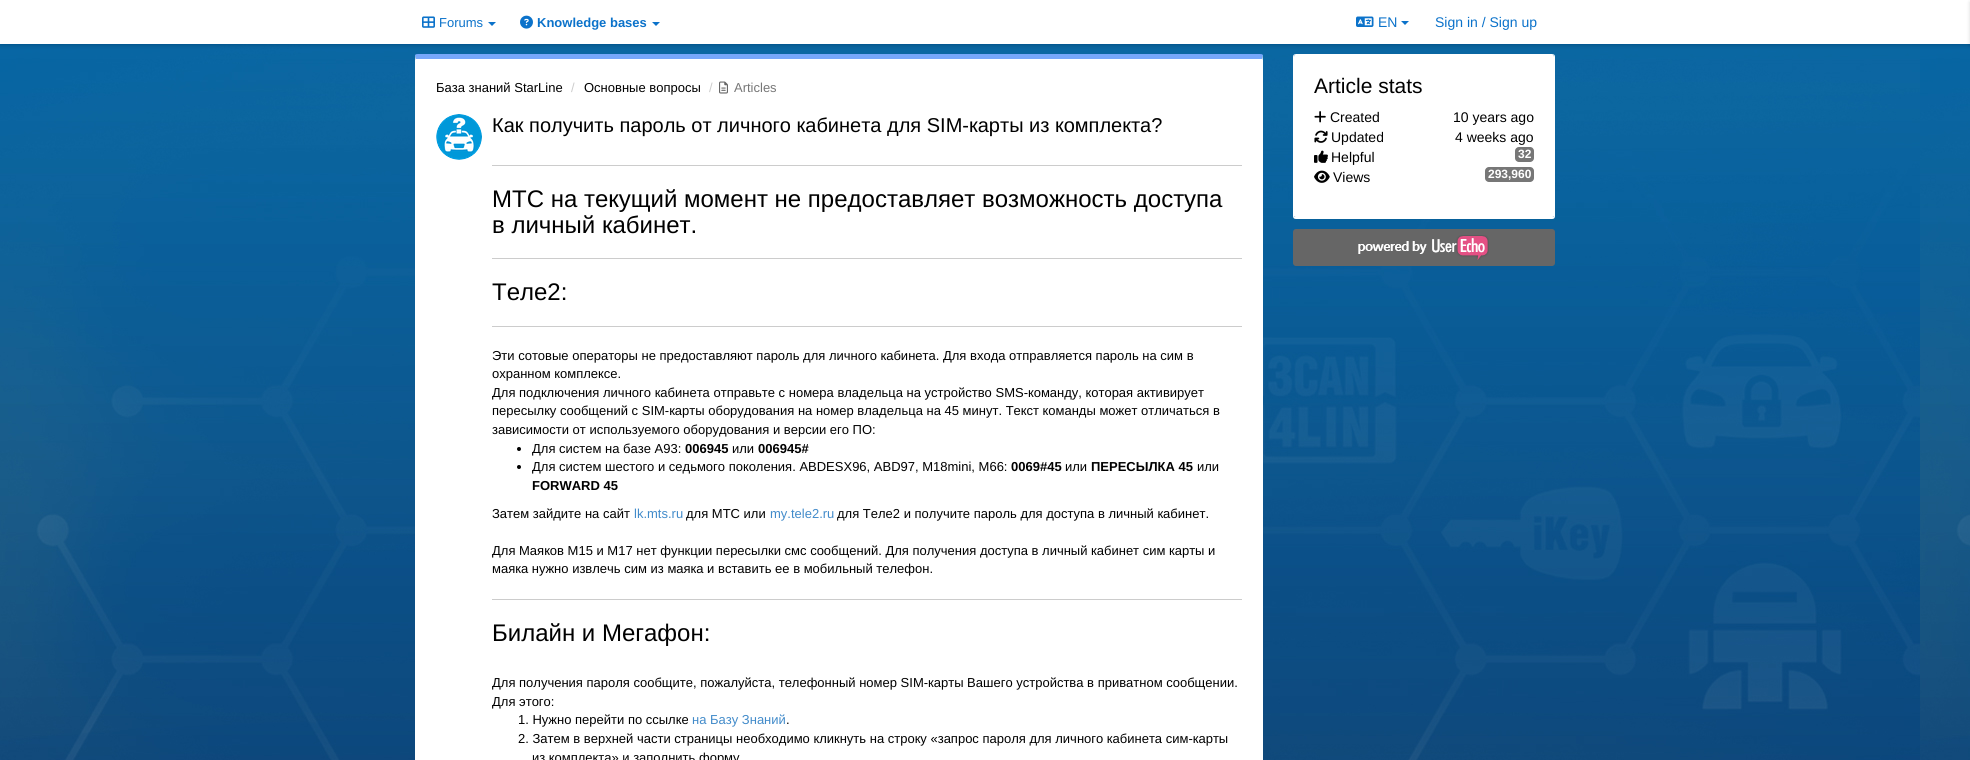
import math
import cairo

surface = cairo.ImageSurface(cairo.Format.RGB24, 1970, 760)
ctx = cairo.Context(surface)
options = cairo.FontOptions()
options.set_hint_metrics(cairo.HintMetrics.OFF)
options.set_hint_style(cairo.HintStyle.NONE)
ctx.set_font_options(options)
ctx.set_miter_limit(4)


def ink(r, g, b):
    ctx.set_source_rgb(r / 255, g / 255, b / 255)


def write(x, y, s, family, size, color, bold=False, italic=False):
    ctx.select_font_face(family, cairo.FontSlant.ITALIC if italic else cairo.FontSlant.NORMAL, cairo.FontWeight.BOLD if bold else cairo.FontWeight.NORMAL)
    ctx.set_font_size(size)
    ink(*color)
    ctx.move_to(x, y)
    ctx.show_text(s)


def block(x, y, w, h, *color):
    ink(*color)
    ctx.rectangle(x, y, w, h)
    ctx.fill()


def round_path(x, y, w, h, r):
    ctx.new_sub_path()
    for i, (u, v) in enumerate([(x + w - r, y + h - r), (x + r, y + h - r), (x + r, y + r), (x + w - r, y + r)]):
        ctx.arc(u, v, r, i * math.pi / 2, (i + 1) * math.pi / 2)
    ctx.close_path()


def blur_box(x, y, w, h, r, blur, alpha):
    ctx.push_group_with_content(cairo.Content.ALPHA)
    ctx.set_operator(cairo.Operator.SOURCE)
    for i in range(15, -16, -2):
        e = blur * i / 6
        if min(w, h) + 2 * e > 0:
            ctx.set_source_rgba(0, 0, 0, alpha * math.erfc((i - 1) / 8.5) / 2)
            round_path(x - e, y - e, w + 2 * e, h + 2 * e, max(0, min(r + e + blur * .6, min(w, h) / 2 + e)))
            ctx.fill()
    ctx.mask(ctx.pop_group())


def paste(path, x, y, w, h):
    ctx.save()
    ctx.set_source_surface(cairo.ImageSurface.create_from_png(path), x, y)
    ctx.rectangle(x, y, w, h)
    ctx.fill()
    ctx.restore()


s1 = dict(family="Liberation Sans", size=13, color=(11, 114, 202))
s2 = dict(family="Liberation Sans", size=13, color=(11, 114, 202), bold=True)
s3 = dict(family="Liberation Sans", size=14, color=(11, 114, 202))
s4 = dict(family="Liberation Sans", size=13, color=(0, 0, 0))
s5 = dict(family="Liberation Sans", size=13, color=(204, 204, 204))
s6 = dict(family="Liberation Sans", size=13, color=(119, 119, 119))
s7 = dict(family="Liberation Sans", size=20, color=(0, 0, 0))
s8 = dict(family="Liberation Sans", size=24, color=(0, 0, 0))
s9 = dict(family="Liberation Sans", size=13, color=(0, 0, 0), bold=True)
s10 = dict(family="Liberation Sans", size=13, color=(66, 139, 202))
s11 = dict(family="Liberation Sans", size=21, color=(0, 0, 0))
s12 = dict(family="Liberation Sans", size=14, color=(0, 0, 0))
s13 = dict(family="Liberation Sans", size=12, color=(255, 255, 255), bold=True)

ink(255, 255, 255)
ctx.paint()
paste("pic1.png", 0, 44, 1970, 716)
ink(0, 0, 0)
blur_box(0, 2, 1970, 44, 0, 2, 0.15)
block(0, 0, 1970, 44, 255, 255, 255)
paste("pic2.png", 422, 16, 13, 12)
write(439, 27, "Forums", **s1)
ctx.new_path()
ctx.move_to(488, 22)
ctx.line_to(496, 22)
ctx.line_to(492, 26)
ctx.close_path()
ctx.fill()
paste("pic3.png", 520, 15, 13, 14)
write(537, 27, "Knowledge bases", **s2)
ctx.new_path()
ctx.move_to(652, 22)
ctx.line_to(660, 22)
ctx.line_to(656, 26)
ctx.close_path()
ctx.fill()
paste("pic4.png", 1356, 16, 18, 11)
write(1378, 27, "EN", **s3)
ctx.new_path()
ctx.move_to(1401, 21)
ctx.line_to(1409, 21)
ctx.line_to(1405, 25)
ctx.close_path()
ctx.fill()
write(1435, 27, "Sign in / Sign up", **s3)
ink(0, 0, 0)
blur_box(1970, 2, 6, 44, 0, 2, 0.15)
ink(255, 255, 255)
ctx.new_path()
ctx.move_to(418, 59)
ctx.line_to(1262, 59)
ctx.line_to(1262, 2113)
ctx.curve_to(1262, 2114, 1261, 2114, 1260, 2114)
ctx.line_to(418, 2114)
ctx.curve_to(417, 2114, 416, 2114, 416, 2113)
ctx.line_to(416, 59)
ctx.close_path()
ctx.fill()
ink(118, 167, 250)
ctx.new_path()
ctx.move_to(418, 54)
ctx.curve_to(417, 54, 416, 54, 415, 55)
ctx.line_to(416, 59)
ctx.line_to(1262, 59)
ctx.line_to(1263, 55)
ctx.curve_to(1262, 54, 1261, 54, 1260, 54)
ctx.close_path()
ctx.fill()
ink(255, 255, 255)
ctx.new_path()
ctx.move_to(1263, 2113)
ctx.line_to(1263, 55)
ctx.curve_to(1240, 169, 1262, 185, 1262, 401)
ctx.line_to(1262, 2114)
ctx.line_to(1262, 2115)
ctx.close_path()
ctx.fill()
ctx.new_path()
ctx.move_to(415, 57)
ctx.line_to(415, 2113)
ctx.line_to(416, 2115)
ctx.line_to(416, 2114)
ctx.line_to(416, 401)
ctx.curve_to(416, 185, 438, 169, 415, 55)
ctx.close_path()
ctx.fill()
write(436, 92, "База знаний StarLine", **s4)
write(571, 92, "/", **s5)
write(584, 92, "Основные вопросы", **s4)
write(709, 92, "/", **s5)
paste("pic5.png", 719, 81, 9, 13)
write(734, 92, "Articles", **s6)
paste("pic6.png", 436, 114, 46, 46)
write(492, 132, "Как получить пароль от личного кабинета для SIM-карты из комплекта?", **s7)
block(492, 165, 750, 1, 204, 204, 204)
write(492, 207, "МТС на текущий момент не предоставляет возможность доступа", **s8)
write(492, 233, "в личный кабинет.", **s8)
block(492, 258, 750, 1, 204, 204, 204)
write(492, 300, "Теле2:", **s8)
block(492, 326, 750, 1, 204, 204, 204)
write(492, 360, "Эти сотовые операторы не предоставляют пароль для личного кабинета. Для входа отправляется пароль на сим в", **s4)
write(492, 378, "охранном комплексе.", **s4)
write(492, 397, "Для подключения личного кабинета отправьте с номера владельца на устройство SMS-команду, которая активирует", **s4)
write(492, 415, "пересылку сообщений с SIM-карты оборудования на номер владельца на 45 минут. Текст команды может отличаться в", **s4)
write(492, 434, "зависимости от используемого оборудования и версии его ПО:", **s4)
ctx.new_path()
ctx.arc(519, 449, 2, 0, 2 * math.pi)
ctx.fill()
write(532, 453, "Для систем на базе А93:", **s4)
write(685, 453, "006945", **s9)
write(732, 453, "или", **s4)
write(758, 453, "006945#", **s9)
ctx.new_path()
ctx.arc(519, 467, 2, 0, 2 * math.pi)
ctx.fill()
write(532, 471, "Для систем шестого и седьмого поколения. ABDESX96, ABD97, M18mini, M66:", **s4)
write(1011, 471, "0069#45", **s9)
write(1065, 471, "или", **s4)
write(1091, 471, "ПЕРЕСЫЛКА 45", **s9)
write(1197, 471, "или", **s4)
write(532, 490, "FORWARD 45", **s9)
write(492, 518, "Затем зайдите на сайт", **s4)
write(634, 518, "lk.mts.ru", **s10)
write(686, 518, "для МТС или", **s4)
write(770, 518, "my.tele2.ru", **s10)
write(837, 518, "для Теле2 и получите пароль для доступа в личный кабинет.", **s4)
write(492, 555, "Для Маяков М15 и М17 нет функции пересылки смс сообщений. Для получения доступа в личный кабинет сим карты и", **s4)
write(492, 573, "маяка нужно извлечь сим из маяка и вставить ее в мобильный телефон.", **s4)
block(492, 599, 750, 1, 204, 204, 204)
write(492, 641, "Билайн и Мегафон:", **s8)
write(492, 687, "Для получения пароля сообщите, пожалуйста, телефонный номер SIM-карты Вашего устройства в приватном сообщении.", **s4)
write(492, 706, "Для этого:", **s4)
write(518, 724, "1. Нужно перейти по ссылке", **s4)
write(692, 724, "на Базу Знаний", **s10)
write(786, 724, ".", **s4)
write(518, 743, "2. Затем в верхней части страницы необходимо кликнуть на строку «запрос пароля для личного кабинета сим-карты", **s4)
write(532, 762, "из комплекта» и заполнить форму", **s4)
ink(255, 255, 255)
ctx.new_path()
ctx.move_to(1296, 54)
ctx.line_to(1552, 54)
ctx.curve_to(1553, 54, 1554, 55, 1554, 57)
ctx.line_to(1554, 216)
ctx.curve_to(1554, 217, 1553, 217, 1552, 217)
ctx.line_to(1296, 217)
ctx.curve_to(1295, 217, 1294, 217, 1294, 216)
ctx.line_to(1294, 57)
ctx.curve_to(1294, 55, 1295, 54, 1296, 54)
ctx.close_path()
ctx.fill()
ctx.set_fill_rule(cairo.FillRule.EVEN_ODD)
ctx.new_path()
ctx.move_to(1296, 54)
ctx.line_to(1552, 54)
ctx.curve_to(1554, 54, 1555, 55, 1555, 57)
ctx.line_to(1555, 216)
ctx.curve_to(1555, 218, 1554, 219, 1552, 219)
ctx.line_to(1296, 219)
ctx.curve_to(1294, 219, 1293, 218, 1293, 216)
ctx.line_to(1293, 57)
ctx.curve_to(1293, 55, 1294, 54, 1296, 54)
ctx.close_path()
ctx.move_to(1296, 54)
ctx.line_to(1552, 54)
ctx.curve_to(1553, 54, 1554, 55, 1554, 57)
ctx.line_to(1554, 216)
ctx.curve_to(1554, 217, 1553, 217, 1552, 217)
ctx.line_to(1296, 217)
ctx.curve_to(1295, 217, 1294, 217, 1294, 216)
ctx.line_to(1294, 57)
ctx.curve_to(1294, 55, 1295, 54, 1296, 54)
ctx.close_path()
ctx.fill()
write(1314, 93, "Article stats", **s11)
paste("pic7.png", 1314, 111, 12, 12)
write(1330, 122, "Created", **s12)
write(1453, 122, "10 years ago", **s12)
paste("pic8.png", 1314, 130, 14, 13)
write(1331, 142, "Updated", **s12)
write(1455, 142, "4 weeks ago", **s12)
paste("pic9.png", 1314, 150, 14, 13)
write(1331, 162, "Helpful", **s12)
ink(119, 119, 119)
round_path(1515, 147, 19, 15, 4)
ctx.fill()
write(1518, 158, "32", **s13)
paste("pic10.png", 1314, 170, 16, 13)
write(1333, 182, "Views", **s12)
ink(119, 119, 119)
round_path(1485, 167, 49, 15, 4)
ctx.fill()
write(1488, 178, "293,960", **s13)
ink(102, 102, 102)
round_path(1293, 229, 262, 37, 3)
ctx.fill()
paste("pic11.png", 1358, 235, 131, 25)
surface.write_to_png("screenshot.png")
